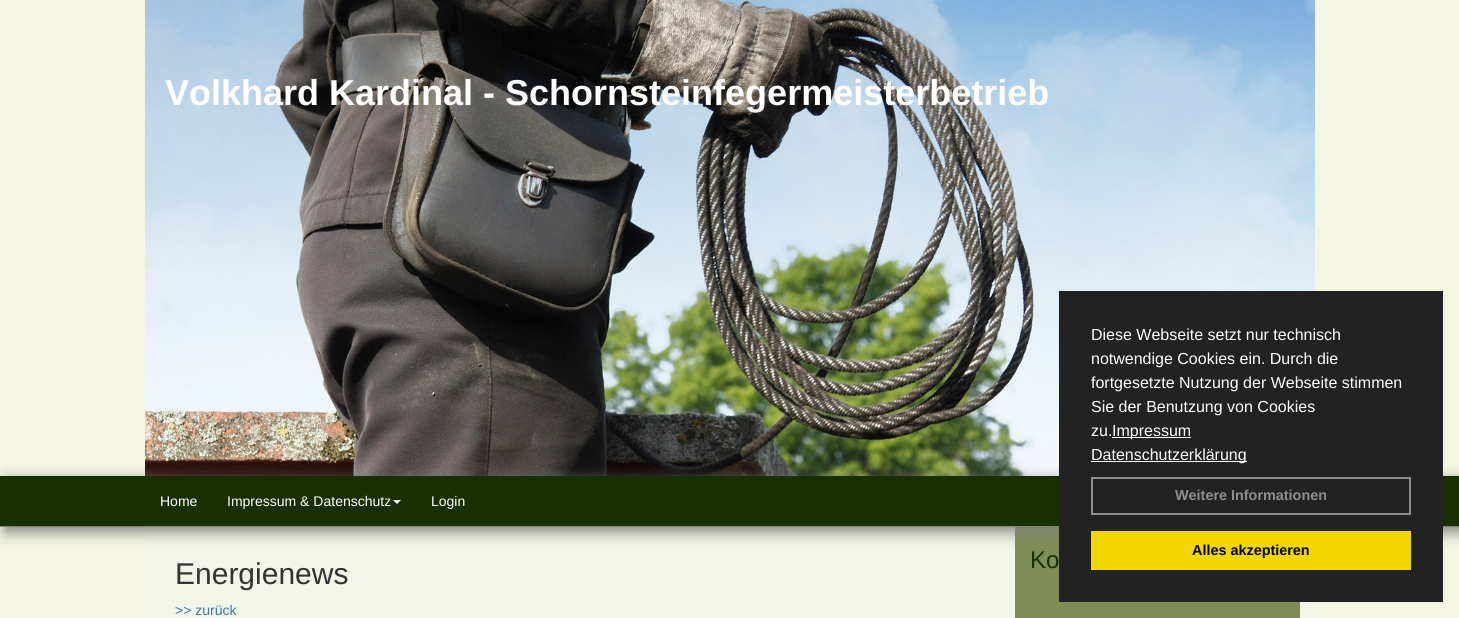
import math
import cairo

surface = cairo.ImageSurface(cairo.Format.RGB24, 1459, 618)
ctx = cairo.Context(surface)
options = cairo.FontOptions()
options.set_hint_metrics(cairo.HintMetrics.OFF)
options.set_hint_style(cairo.HintStyle.NONE)
ctx.set_font_options(options)
ctx.set_miter_limit(4)


def ink(r, g, b):
    ctx.set_source_rgb(r / 255, g / 255, b / 255)


def write(x, y, s, family, size, color, bold=False, italic=False):
    ctx.select_font_face(family, cairo.FontSlant.ITALIC if italic else cairo.FontSlant.NORMAL, cairo.FontWeight.BOLD if bold else cairo.FontWeight.NORMAL)
    ctx.set_font_size(size)
    ink(*color)
    ctx.move_to(x, y)
    ctx.show_text(s)


def block(x, y, w, h, *color):
    ink(*color)
    ctx.rectangle(x, y, w, h)
    ctx.fill()


def round_path(x, y, w, h, r):
    ctx.new_sub_path()
    for i, (u, v) in enumerate([(x + w - r, y + h - r), (x + r, y + h - r), (x + r, y + r), (x + w - r, y + r)]):
        ctx.arc(u, v, r, i * math.pi / 2, (i + 1) * math.pi / 2)
    ctx.close_path()


def blur_box(x, y, w, h, r, blur, alpha):
    ctx.push_group_with_content(cairo.Content.ALPHA)
    ctx.set_operator(cairo.Operator.SOURCE)
    for i in range(15, -16, -2):
        e = blur * i / 6
        if min(w, h) + 2 * e > 0:
            ctx.set_source_rgba(0, 0, 0, alpha * math.erfc((i - 1) / 8.5) / 2)
            round_path(x - e, y - e, w + 2 * e, h + 2 * e, max(0, min(r + e + blur * .6, min(w, h) / 2 + e)))
            ctx.fill()
    ctx.mask(ctx.pop_group())


def paste(path, x, y, w, h):
    ctx.save()
    ctx.set_source_surface(cairo.ImageSurface.create_from_png(path), x, y)
    ctx.rectangle(x, y, w, h)
    ctx.fill()
    ctx.restore()


s1 = dict(family="Liberation Sans", size=36, color=(255, 255, 255), bold=True)
s2 = dict(family="Liberation Sans", size=14, color=(255, 255, 255))
s3 = dict(family="Liberation Sans", size=24, color=(24, 48, 1))
s4 = dict(family="Liberation Sans", size=30, color=(51, 51, 51))
s5 = dict(family="Liberation Sans", size=14, color=(51, 122, 183))
s6 = dict(family="Liberation Sans", size=16, color=(255, 255, 255))
s7 = dict(family="Liberation Sans", size=14.4, color=(143, 143, 143), bold=True)
s8 = dict(family="Liberation Sans", size=14.4, color=(0, 0, 0), bold=True)

ink(244, 246, 225)
ctx.paint()
paste("pic1.png", 145, 0, 1170, 476)
write(165, 105, "Volkhard Kardinal - Schornsteinfegermeisterbetrieb", **s1)
block(145, 527, 1170, 91, 244, 245, 233)
block(1015, 527, 285, 91, 127, 140, 86)
ink(128, 128, 128)
blur_box(5, 481, 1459, 51, 0, 7.5, 1)
block(0, 476, 1459, 50, 24, 48, 1)
block(0, 526, 1459, 1, 127, 140, 86)
write(160, 506, "Home", **s2)
write(227, 506, "Impressum & Datenschutz", **s2)
ctx.new_path()
ctx.move_to(393, 500)
ctx.line_to(401, 500)
ctx.line_to(397, 504)
ctx.close_path()
ctx.fill()
write(431, 506, "Login", **s2)
write(1030, 568, "Ko", **s3)
write(175, 584, "Energienews", **s4)
write(175, 615, ">> zurück", **s5)
block(1059, 291, 384, 311, 34, 34, 34)
write(1091, 340, "Diese Webseite setzt nur technisch", **s6)
write(1091, 364, "notwendige Cookies ein. Durch die", **s6)
write(1091, 388, "fortgesetzte Nutzung der Webseite stimmen", **s6)
write(1091, 412, "Sie der Benutzung von Cookies", **s6)
write(1091, 436, "zu.", **s6)
block(1112, 437, 79, 1, 255, 255, 255)
write(1112, 436, "Impressum", **s6)
block(1091, 461, 156, 1, 255, 255, 255)
write(1091, 460, "Datenschutzerklärung", **s6)
ctx.rectangle(1092, 478, 318, 36)
ink(143, 143, 143)
ctx.stroke()
write(1175, 500, "Weitere Informationen", **s7)
block(1091, 531, 320, 39, 241, 214, 0)
write(1192, 555, "Alles akzeptieren", **s8)
surface.write_to_png("screenshot.png")
